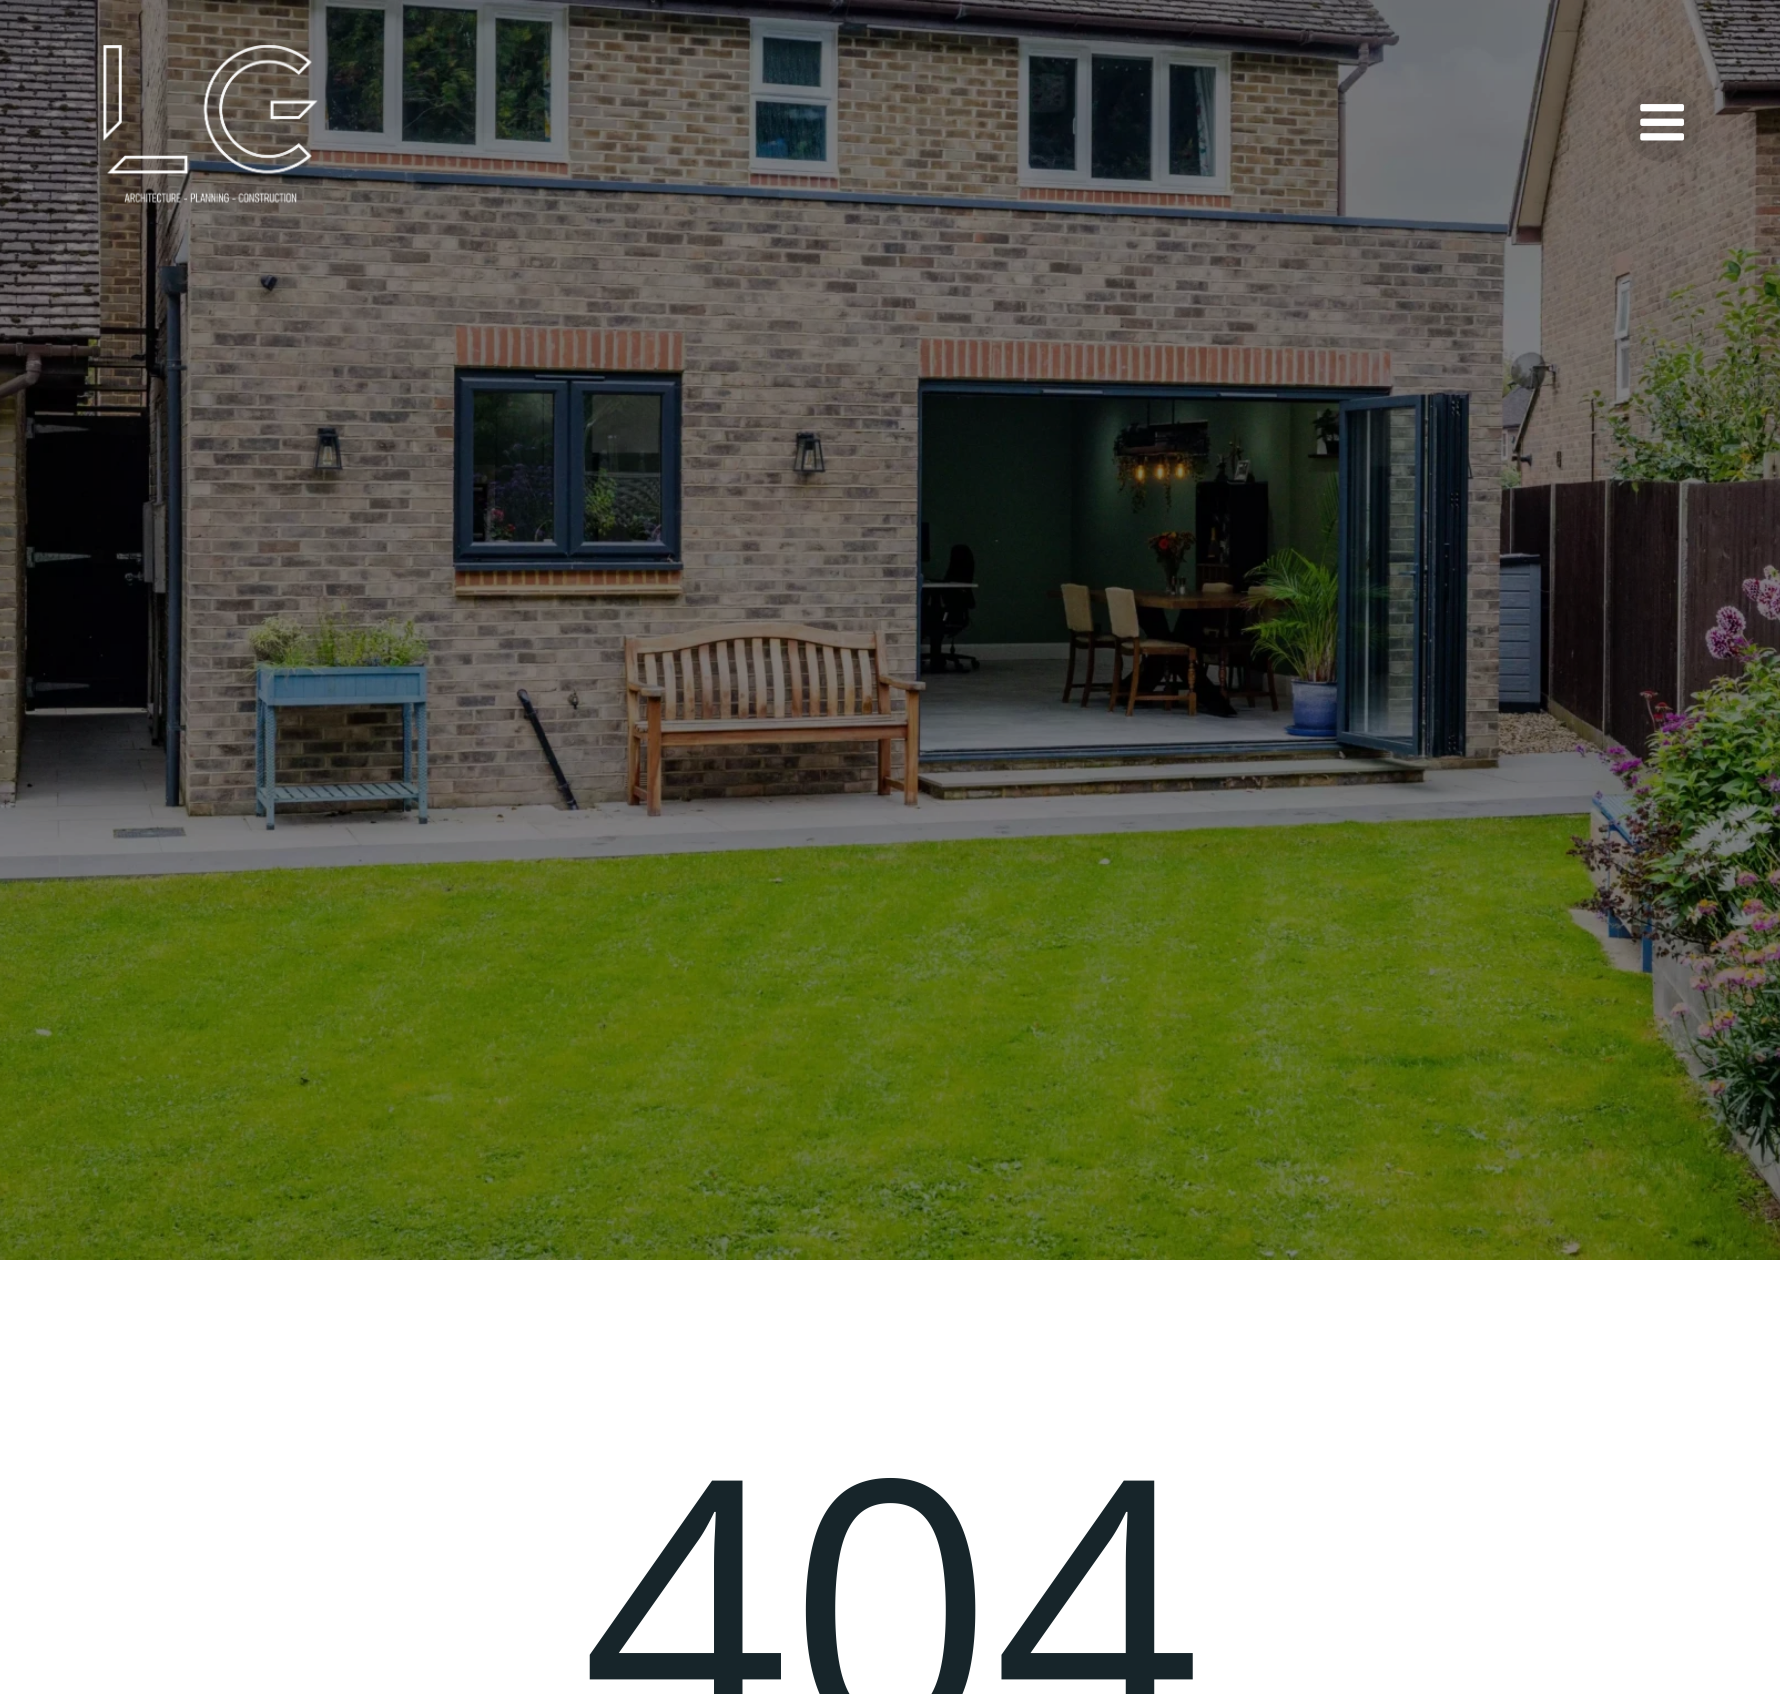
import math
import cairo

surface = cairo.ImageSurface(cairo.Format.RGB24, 1780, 1694)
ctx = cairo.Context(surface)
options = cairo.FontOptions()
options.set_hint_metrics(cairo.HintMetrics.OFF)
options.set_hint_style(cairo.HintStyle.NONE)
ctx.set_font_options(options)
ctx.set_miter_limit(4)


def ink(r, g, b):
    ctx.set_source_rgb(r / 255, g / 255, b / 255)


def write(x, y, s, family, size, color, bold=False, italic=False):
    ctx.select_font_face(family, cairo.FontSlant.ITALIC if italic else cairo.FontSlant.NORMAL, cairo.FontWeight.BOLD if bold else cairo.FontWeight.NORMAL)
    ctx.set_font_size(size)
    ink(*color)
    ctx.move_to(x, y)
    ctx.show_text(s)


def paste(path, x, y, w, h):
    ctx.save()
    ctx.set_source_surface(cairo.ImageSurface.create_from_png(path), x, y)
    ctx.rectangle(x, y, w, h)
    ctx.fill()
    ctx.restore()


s1 = dict(family="Open Sans", size=360, color=(23, 37, 42))

ink(255, 255, 255)
ctx.paint()
paste("pic1.png", 0, 0, 1780, 1260)
paste("pic2.png", 103, 45, 215, 158)
ctx.set_source_rgba(0, 0, 0, 0.1)
ctx.arc(1663, 124, 38, 0, 2 * math.pi)
ctx.fill()
paste("pic3.png", 1640, 104, 44, 37)
write(582, 1739, "404", **s1)
surface.write_to_png("screenshot.png")
